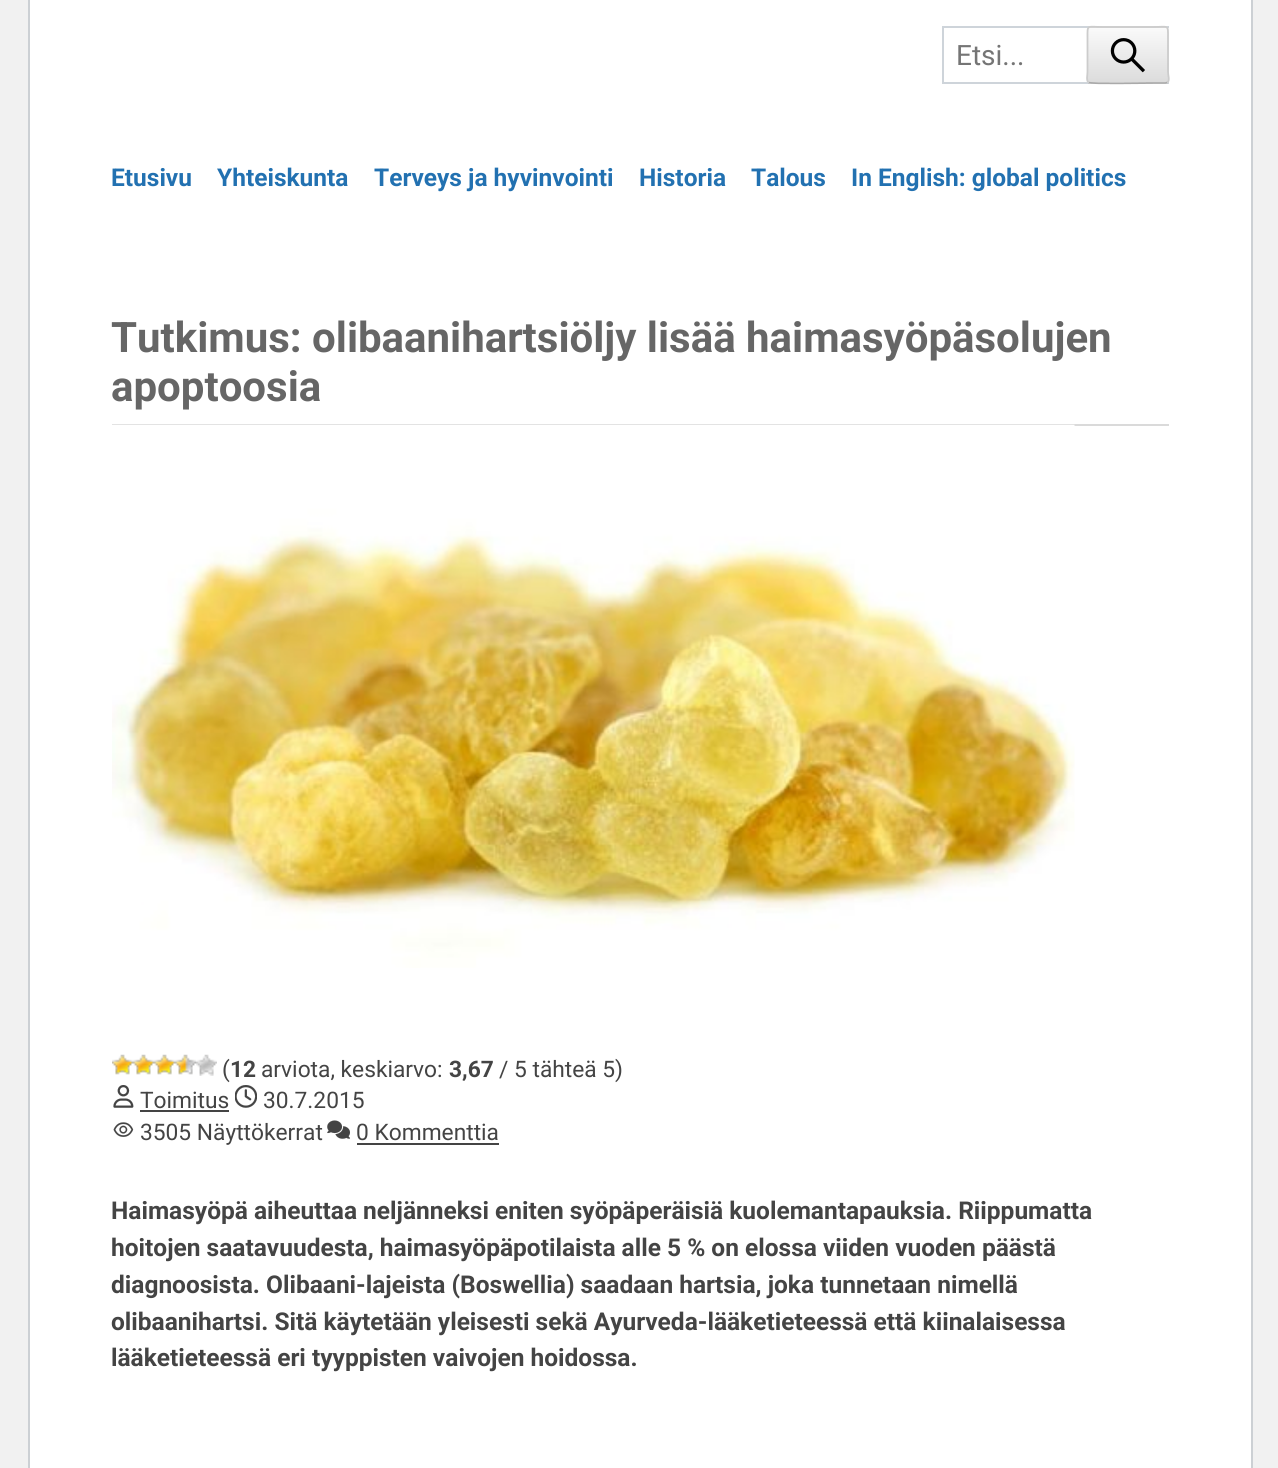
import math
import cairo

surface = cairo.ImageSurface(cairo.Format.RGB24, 1278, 1468)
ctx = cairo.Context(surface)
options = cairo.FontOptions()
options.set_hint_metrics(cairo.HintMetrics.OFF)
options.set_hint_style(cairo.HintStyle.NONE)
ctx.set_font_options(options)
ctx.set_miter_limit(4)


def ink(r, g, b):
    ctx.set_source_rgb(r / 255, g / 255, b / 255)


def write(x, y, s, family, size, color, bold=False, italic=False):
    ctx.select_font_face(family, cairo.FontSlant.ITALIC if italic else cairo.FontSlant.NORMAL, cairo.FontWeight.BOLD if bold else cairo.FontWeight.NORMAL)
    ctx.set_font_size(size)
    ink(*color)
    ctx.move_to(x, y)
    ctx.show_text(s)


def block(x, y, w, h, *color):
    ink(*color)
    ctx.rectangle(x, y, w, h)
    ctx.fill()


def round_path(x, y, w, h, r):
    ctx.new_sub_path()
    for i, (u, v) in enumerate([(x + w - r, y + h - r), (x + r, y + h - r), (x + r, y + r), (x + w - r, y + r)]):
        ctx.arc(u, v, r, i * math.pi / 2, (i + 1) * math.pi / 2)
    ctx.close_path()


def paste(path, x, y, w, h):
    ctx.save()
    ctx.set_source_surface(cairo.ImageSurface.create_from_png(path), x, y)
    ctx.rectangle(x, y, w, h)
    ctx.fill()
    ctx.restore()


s1 = dict(family="Roboto", size=28, color=(117, 117, 117))
s2 = dict(family="Roboto", size=24.5, color=(34, 113, 177), bold=True)
s3 = dict(family="Roboto", size=42, color=(102, 102, 102), bold=True)
s4 = dict(family="Roboto", size=22.75, color=(68, 68, 68))
s5 = dict(family="Roboto", size=22.75, color=(68, 68, 68), bold=True)
s6 = dict(family="Roboto", size=24.5, color=(68, 68, 68), bold=True)

ink(241, 241, 241)
ctx.paint()
ink(255, 255, 255)
ctx.rectangle(29, -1, 1223, 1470)
ctx.fill_preserve()
ink(204, 208, 212)
ctx.stroke()
ctx.rectangle(943, 27, 225, 56)
ink(206, 212, 218)
ctx.stroke()
write(956, 65, "Etsi...", **s1)
ctx.save()
round_path(1087, 26, 82, 58, 4)
ctx.clip()
gradient = cairo.LinearGradient(1128, -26, 1128, 28)
gradient.add_color_stop_rgba(0, 0.98, 0.98, 0.98, 1)
gradient.add_color_stop_rgba(1, 0.863, 0.863, 0.863, 1)
ctx.set_source(gradient)
ctx.rectangle(1087, 26, 82, 2)
ctx.fill()
ctx.restore()
gradient = cairo.LinearGradient(1128, 28, 1128, 82)
gradient.add_color_stop_rgba(0, 0.98, 0.98, 0.98, 1)
gradient.add_color_stop_rgba(1, 0.863, 0.863, 0.863, 1)
ctx.set_source(gradient)
ctx.rectangle(1087, 28, 82, 54)
ctx.fill()
ctx.save()
round_path(1087, 26, 82, 58, 4)
ctx.clip()
gradient = cairo.LinearGradient(1128, 82, 1128, 137)
gradient.add_color_stop_rgba(0, 0.98, 0.98, 0.98, 1)
gradient.add_color_stop_rgba(1, 0.863, 0.863, 0.863, 1)
ctx.set_source(gradient)
ctx.rectangle(1087, 82, 82, 2)
ctx.fill()
ctx.restore()
ctx.new_path()
ctx.move_to(1167.5, 82.5)
ctx.line_to(1165.5, 83)
ctx.line_to(1153, 83)
ctx.curve_to(1146, 83, 1090.5, 84, 1088.5, 82.5)
ink(170, 170, 170)
ctx.set_line_width(1.8)
ctx.stroke()
ctx.new_path()
ctx.move_to(1088.5, 82.5)
ctx.curve_to(1086, 80, 1087.5, 75.5, 1087.5, 72)
ctx.line_to(1087.5, 38)
ctx.curve_to(1087.5, 24, 1086.5, 27, 1103, 27)
ctx.line_to(1153, 27)
ctx.curve_to(1169, 27, 1168, 24, 1168, 38)
ctx.line_to(1168, 72)
ctx.curve_to(1168, 75.5, 1170, 80, 1167.5, 82.5)
ink(204, 204, 204)
ctx.stroke()
paste("pic1.png", 1110, 38, 35, 35)
write(111, 186, "Etusivu", **s2)
write(217, 186, "Yhteiskunta", **s2)
write(374, 186, "Terveys ja hyvinvointi", **s2)
write(639, 186, "Historia", **s2)
write(751, 186, "Talous", **s2)
write(851, 186, "In English: global politics", **s2)
block(112, 424, 1057, 2, 218, 218, 218)
write(111, 352, "Tutkimus: olibaanihartsiöljy lisää haimasyöpäsolujen", **s3)
write(111, 401, "apoptoosia", **s3)
paste("pic2.png", 112, 424, 963, 544)
paste("pic3.png", 112, 1054, 21, 21)
paste("pic3.png", 133, 1054, 21, 21)
paste("pic4.png", 154, 1054, 21, 21)
paste("pic5.png", 175, 1054, 21, 21)
paste("pic6.png", 196, 1054, 21, 22)
write(222, 1077, "(", **s4)
write(230, 1077, "12", **s5)
write(261, 1077, "arviota, keskiarvo:", **s4)
write(449, 1077, "3,67", **s5)
write(499, 1077, "/ 5 tähteä 5)", **s4)
paste("pic7.png", 113, 1085, 21, 23)
write(140, 1108, "Toimitus", **s4)
block(140, 1110, 89, 2, 68, 68, 68)
paste("pic8.png", 235, 1085, 22, 23)
write(263, 1108, "30.7.2015", **s4)
paste("pic9.png", 113, 1122, 21, 15)
write(140, 1140, "3505 Näyttökerrat", **s4)
paste("pic10.png", 327, 1120, 23, 19)
write(356, 1140, "0 Kommenttia", **s4)
block(357, 1143, 142, 2, 68, 68, 68)
write(111, 1219, "Haimasyöpä aiheuttaa neljänneksi eniten syöpäperäisiä kuolemantapauksia. Riippumatta", **s6)
write(111, 1256, "hoitojen saatavuudesta, haimasyöpäpotilaista alle 5 % on elossa viiden vuoden päästä", **s6)
write(111, 1293, "diagnoosista. Olibaani-lajeista (Boswellia) saadaan hartsia, joka tunnetaan nimellä", **s6)
write(111, 1330, "olibaanihartsi. Sitä käytetään yleisesti sekä Ayurveda-lääketieteessä että kiinalaisessa", **s6)
write(111, 1366, "lääketieteessä eri tyyppisten vaivojen hoidossa.", **s6)
surface.write_to_png("screenshot.png")
